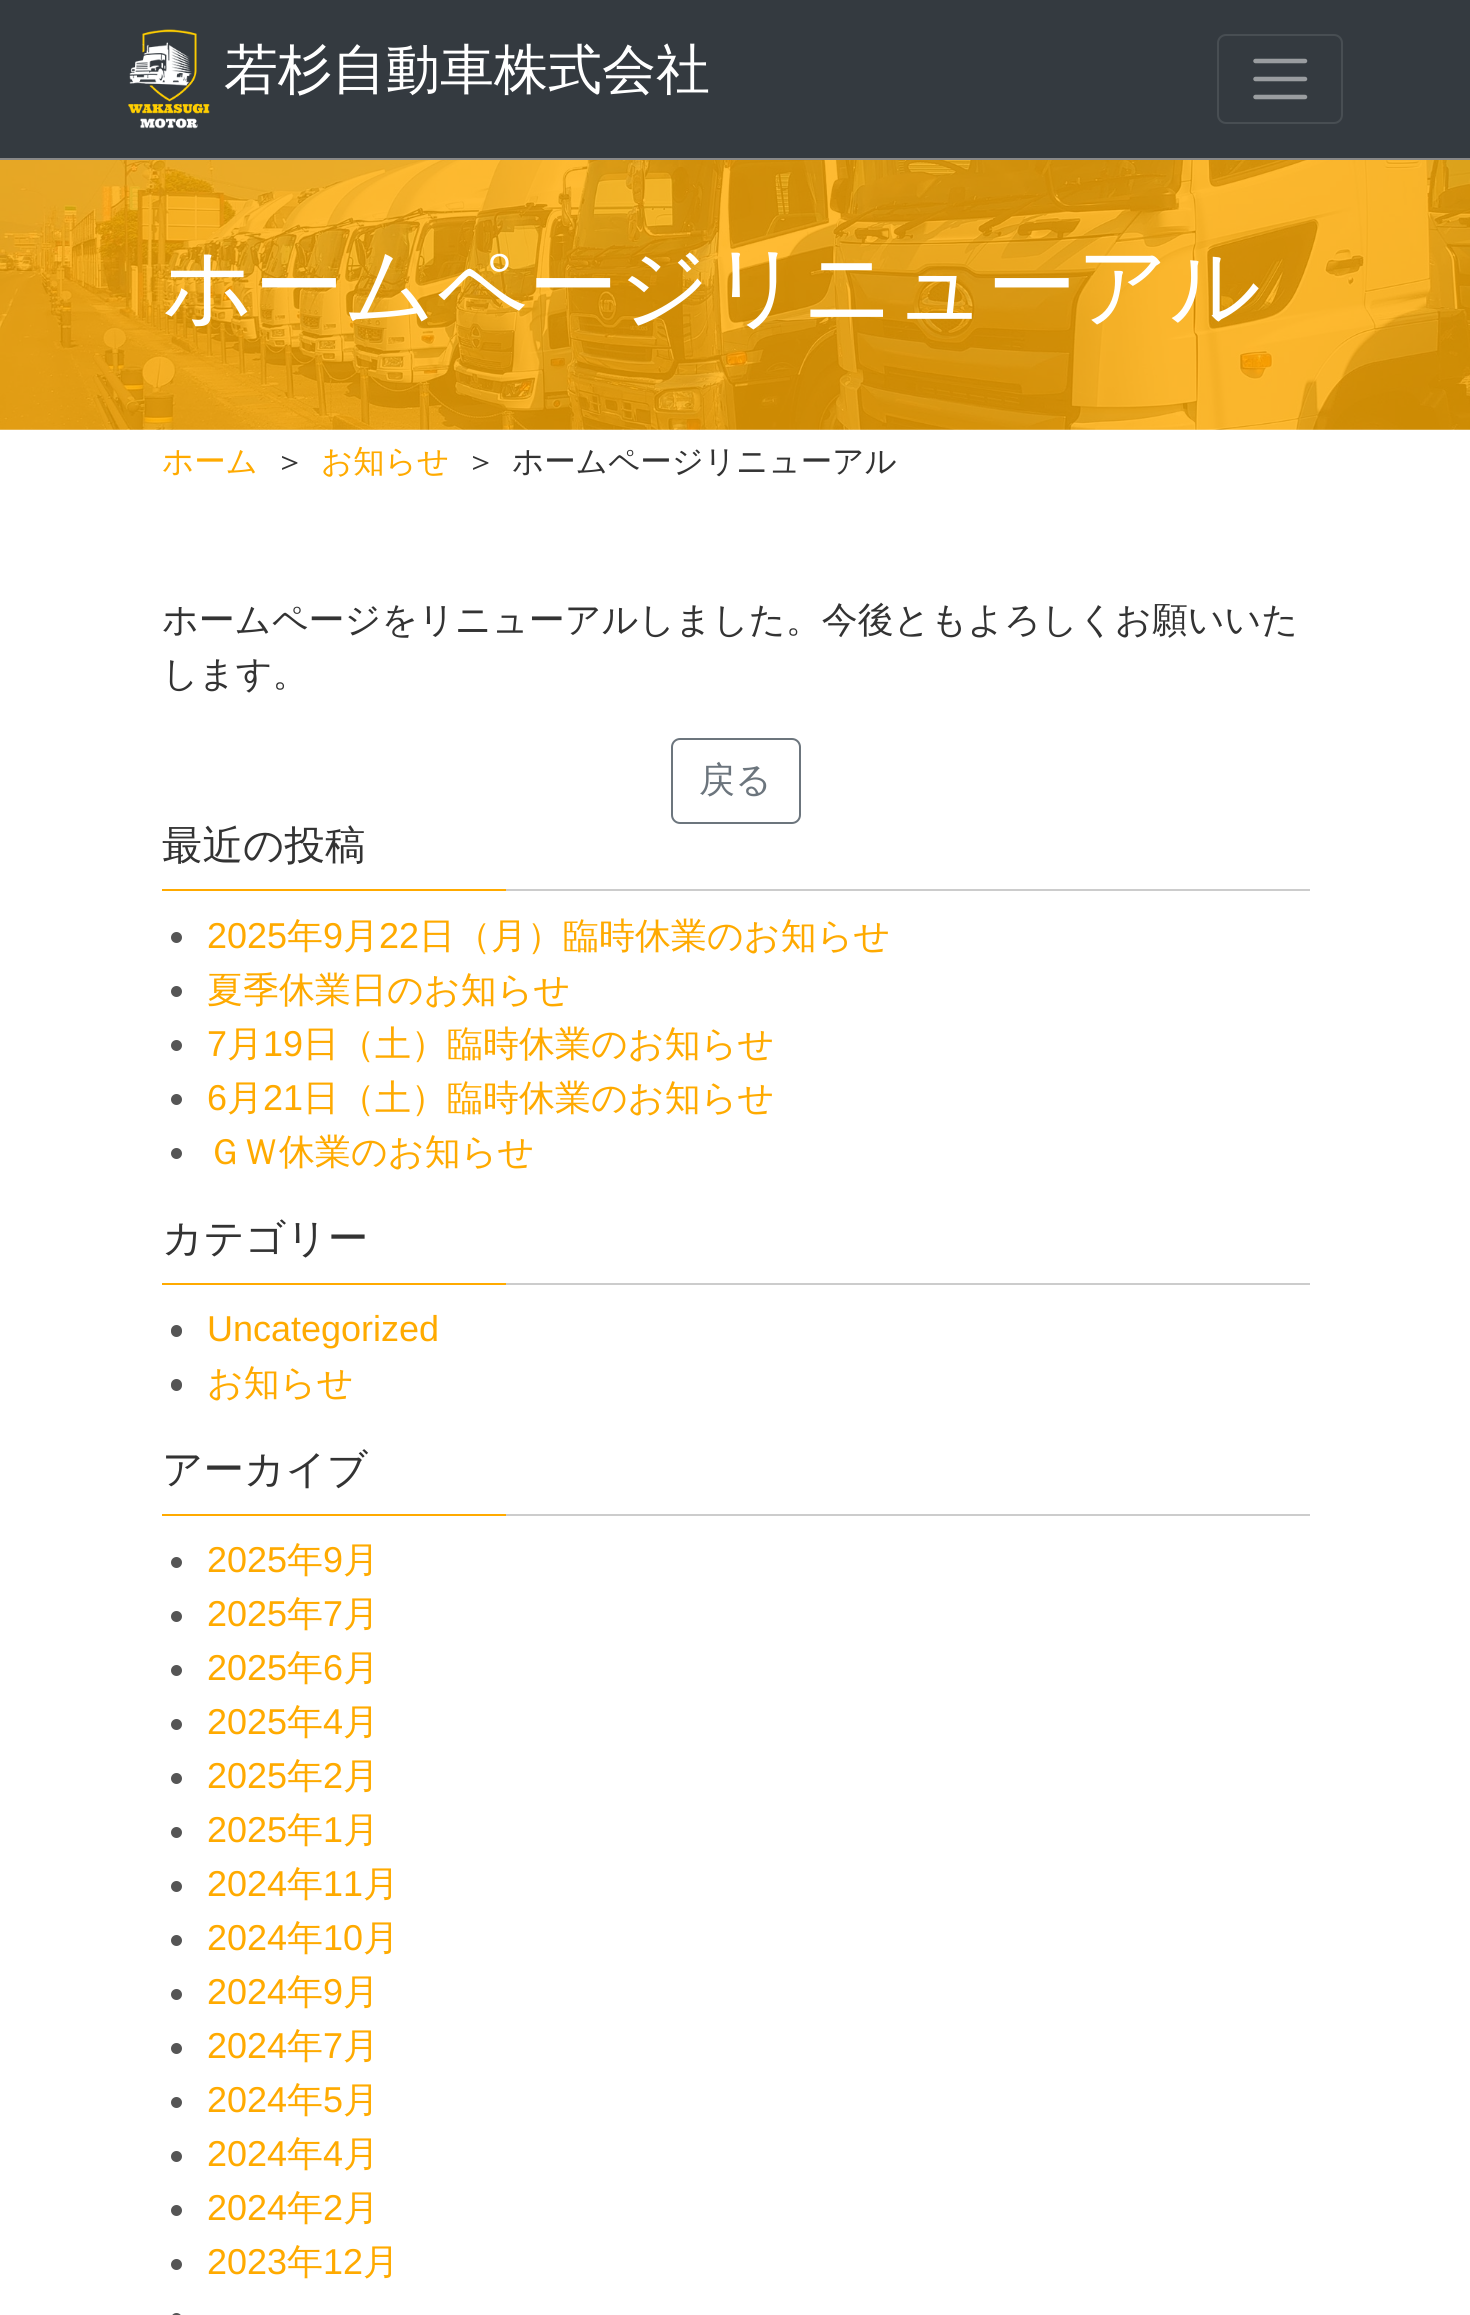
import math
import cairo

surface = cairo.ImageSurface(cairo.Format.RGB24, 1470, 2315)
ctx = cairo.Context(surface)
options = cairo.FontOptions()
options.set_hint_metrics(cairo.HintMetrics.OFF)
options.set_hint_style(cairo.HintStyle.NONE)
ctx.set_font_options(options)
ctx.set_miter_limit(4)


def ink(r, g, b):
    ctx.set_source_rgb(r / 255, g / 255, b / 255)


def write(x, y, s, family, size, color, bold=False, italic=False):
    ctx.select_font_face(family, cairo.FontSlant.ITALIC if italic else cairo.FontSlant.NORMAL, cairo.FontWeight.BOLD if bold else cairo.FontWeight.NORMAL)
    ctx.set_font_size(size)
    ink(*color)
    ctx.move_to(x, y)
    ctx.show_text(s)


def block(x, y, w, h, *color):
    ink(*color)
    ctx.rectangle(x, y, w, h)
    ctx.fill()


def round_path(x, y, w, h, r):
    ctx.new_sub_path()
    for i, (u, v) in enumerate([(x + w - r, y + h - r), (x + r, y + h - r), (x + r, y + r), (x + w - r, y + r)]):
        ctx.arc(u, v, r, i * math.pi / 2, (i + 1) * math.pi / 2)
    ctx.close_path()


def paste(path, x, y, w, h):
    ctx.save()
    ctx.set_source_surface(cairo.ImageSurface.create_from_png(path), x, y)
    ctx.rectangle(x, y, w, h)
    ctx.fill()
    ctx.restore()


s1 = dict(family="WenQuanYi Zen Hei Medium", size=54, color=(255, 255, 255))
s2 = dict(family="WenQuanYi Zen Hei Medium", size=90, color=(255, 255, 255))
s3 = dict(family="WenQuanYi Zen Hei Medium", size=31.5, color=(255, 170, 0))
s4 = dict(family="WenQuanYi Zen Hei Medium", size=31.5, color=(51, 51, 51))
s5 = dict(family="WenQuanYi Zen Hei Medium", size=36, color=(51, 51, 51))
s6 = dict(family="WenQuanYi Zen Hei Medium", size=36, color=(108, 117, 125))
s7 = dict(family="WenQuanYi Zen Hei Medium", size=40.5, color=(51, 51, 51))
s8 = dict(family="Liberation Sans", size=36, color=(255, 170, 0))
s9 = dict(family="WenQuanYi Zen Hei Medium", size=36, color=(255, 170, 0))

ink(255, 255, 255)
ctx.paint()
block(0, 0, 1470, 158, 52, 58, 64)
block(0, 158, 1470, 2, 136, 136, 136)
paste("pic1.png", 128, 29, 82, 100)
write(224, 88, "若杉自動車株式会社", **s1)
round_path(1218, 35, 124, 88, 8)
ink(72, 78, 83)
ctx.stroke()
ctx.new_path()
ctx.move_to(1255.5, 61)
ctx.line_to(1305, 61)
ctx.move_to(1255.5, 79)
ctx.line_to(1305, 79)
ctx.move_to(1255.5, 97)
ctx.line_to(1305, 97)
ink(154, 157, 160)
ctx.set_line_width(4.5)
ctx.set_line_cap(cairo.LineCap.ROUND)
ctx.stroke()
paste("pic2.png", 0, 160, 1470, 270)
write(162, 317, "ホームページリニューアル", **s2)
write(162, 472, "ホーム", **s3)
write(274, 472, "＞", **s4)
write(321, 472, "お知らせ", **s3)
write(465, 472, "＞", **s4)
write(512, 472, "ホームページリニューアル", **s4)
write(162, 632, "ホームページをリニューアルしました。今後ともよろしくお願いいた", **s5)
write(162, 686, "します。", **s5)
round_path(672, 739, 128, 84, 8)
ink(108, 117, 125)
ctx.set_line_width(2)
ctx.set_line_cap(cairo.LineCap.BUTT)
ctx.stroke()
write(699, 792, "戻る", **s6)
block(506, 889, 804, 2, 204, 204, 204)
write(162, 859, "最近の投稿", **s7)
block(162, 889, 344, 2, 255, 170, 0)
ink(85, 85, 85)
ctx.new_path()
ctx.arc(176.5, 937.5, 5.5, 0, 2 * math.pi)
ctx.fill()
write(207, 948, "2025", **s8)
write(287, 948, "年", **s9)
write(323, 948, "9", **s8)
write(343, 948, "月", **s9)
write(379, 948, "22", **s8)
write(419, 948, "日（月）臨時休業のお知らせ", **s9)
ink(85, 85, 85)
ctx.new_path()
ctx.arc(176.5, 991.5, 5.5, 0, 2 * math.pi)
ctx.fill()
write(207, 1002, "夏季休業日のお知らせ", **s9)
ink(85, 85, 85)
ctx.new_path()
ctx.arc(176.5, 1045.5, 5.5, 0, 2 * math.pi)
ctx.fill()
write(207, 1056, "7", **s8)
write(227, 1056, "月", **s9)
write(263, 1056, "19", **s8)
write(303, 1056, "日（土）臨時休業のお知らせ", **s9)
ink(85, 85, 85)
ctx.new_path()
ctx.arc(176.5, 1099.5, 5.5, 0, 2 * math.pi)
ctx.fill()
write(207, 1110, "6", **s8)
write(227, 1110, "月", **s9)
write(263, 1110, "21", **s8)
write(303, 1110, "日（土）臨時休業のお知らせ", **s9)
ink(85, 85, 85)
ctx.new_path()
ctx.arc(176.5, 1153.5, 5.5, 0, 2 * math.pi)
ctx.fill()
write(207, 1164, "ＧＷ休業のお知らせ", **s9)
block(506, 1283, 804, 2, 204, 204, 204)
write(162, 1252, "カテゴリー", **s7)
block(162, 1283, 344, 2, 255, 170, 0)
ink(85, 85, 85)
round_path(171, 1325, 11, 12, 5.5)
ctx.fill()
write(207, 1341, "Uncategorized", **s8)
ink(85, 85, 85)
round_path(171, 1379, 11, 12, 5.5)
ctx.fill()
write(207, 1395, "お知らせ", **s9)
block(506, 1514, 804, 2, 204, 204, 204)
write(162, 1483, "アーカイブ", **s7)
block(162, 1514, 344, 2, 255, 170, 0)
ink(85, 85, 85)
ctx.new_path()
ctx.arc(176.5, 1562.5, 5.5, 0, 2 * math.pi)
ctx.fill()
write(207, 1572, "2025", **s8)
write(287, 1572, "年", **s9)
write(323, 1572, "9", **s8)
write(343, 1572, "月", **s9)
ink(85, 85, 85)
ctx.new_path()
ctx.arc(176.5, 1616.5, 5.5, 0, 2 * math.pi)
ctx.fill()
write(207, 1626, "2025", **s8)
write(287, 1626, "年", **s9)
write(323, 1626, "7", **s8)
write(343, 1626, "月", **s9)
ink(85, 85, 85)
ctx.new_path()
ctx.arc(176.5, 1670.5, 5.5, 0, 2 * math.pi)
ctx.fill()
write(207, 1680, "2025", **s8)
write(287, 1680, "年", **s9)
write(323, 1680, "6", **s8)
write(343, 1680, "月", **s9)
ink(85, 85, 85)
ctx.new_path()
ctx.arc(176.5, 1724.5, 5.5, 0, 2 * math.pi)
ctx.fill()
write(207, 1734, "2025", **s8)
write(287, 1734, "年", **s9)
write(323, 1734, "4", **s8)
write(343, 1734, "月", **s9)
ink(85, 85, 85)
ctx.new_path()
ctx.arc(176.5, 1778.5, 5.5, 0, 2 * math.pi)
ctx.fill()
write(207, 1788, "2025", **s8)
write(287, 1788, "年", **s9)
write(323, 1788, "2", **s8)
write(343, 1788, "月", **s9)
ink(85, 85, 85)
ctx.new_path()
ctx.arc(176.5, 1832.5, 5.5, 0, 2 * math.pi)
ctx.fill()
write(207, 1842, "2025", **s8)
write(287, 1842, "年", **s9)
write(323, 1842, "1", **s8)
write(343, 1842, "月", **s9)
ink(85, 85, 85)
ctx.new_path()
ctx.arc(176.5, 1886.5, 5.5, 0, 2 * math.pi)
ctx.fill()
write(207, 1896, "2024", **s8)
write(287, 1896, "年", **s9)
write(323, 1896, "11", **s8)
write(363, 1896, "月", **s9)
ink(85, 85, 85)
ctx.new_path()
ctx.arc(176.5, 1940.5, 5.5, 0, 2 * math.pi)
ctx.fill()
write(207, 1950, "2024", **s8)
write(287, 1950, "年", **s9)
write(323, 1950, "10", **s8)
write(363, 1950, "月", **s9)
ink(85, 85, 85)
ctx.new_path()
ctx.arc(176.5, 1994.5, 5.5, 0, 2 * math.pi)
ctx.fill()
write(207, 2004, "2024", **s8)
write(287, 2004, "年", **s9)
write(323, 2004, "9", **s8)
write(343, 2004, "月", **s9)
ink(85, 85, 85)
ctx.new_path()
ctx.arc(176.5, 2048.5, 5.5, 0, 2 * math.pi)
ctx.fill()
write(207, 2058, "2024", **s8)
write(287, 2058, "年", **s9)
write(323, 2058, "7", **s8)
write(343, 2058, "月", **s9)
ink(85, 85, 85)
ctx.new_path()
ctx.arc(176.5, 2102.5, 5.5, 0, 2 * math.pi)
ctx.fill()
write(207, 2112, "2024", **s8)
write(287, 2112, "年", **s9)
write(323, 2112, "5", **s8)
write(343, 2112, "月", **s9)
ink(85, 85, 85)
ctx.new_path()
ctx.arc(176.5, 2156.5, 5.5, 0, 2 * math.pi)
ctx.fill()
write(207, 2166, "2024", **s8)
write(287, 2166, "年", **s9)
write(323, 2166, "4", **s8)
write(343, 2166, "月", **s9)
ink(85, 85, 85)
ctx.new_path()
ctx.arc(176.5, 2210.5, 5.5, 0, 2 * math.pi)
ctx.fill()
write(207, 2220, "2024", **s8)
write(287, 2220, "年", **s9)
write(323, 2220, "2", **s8)
write(343, 2220, "月", **s9)
ink(85, 85, 85)
ctx.new_path()
ctx.arc(176.5, 2264.5, 5.5, 0, 2 * math.pi)
ctx.fill()
write(207, 2274, "2023", **s8)
write(287, 2274, "年", **s9)
write(323, 2274, "12", **s8)
write(363, 2274, "月", **s9)
ink(85, 85, 85)
round_path(171, 2313, 11, 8, 5.5)
ctx.fill()
surface.write_to_png("screenshot.png")
